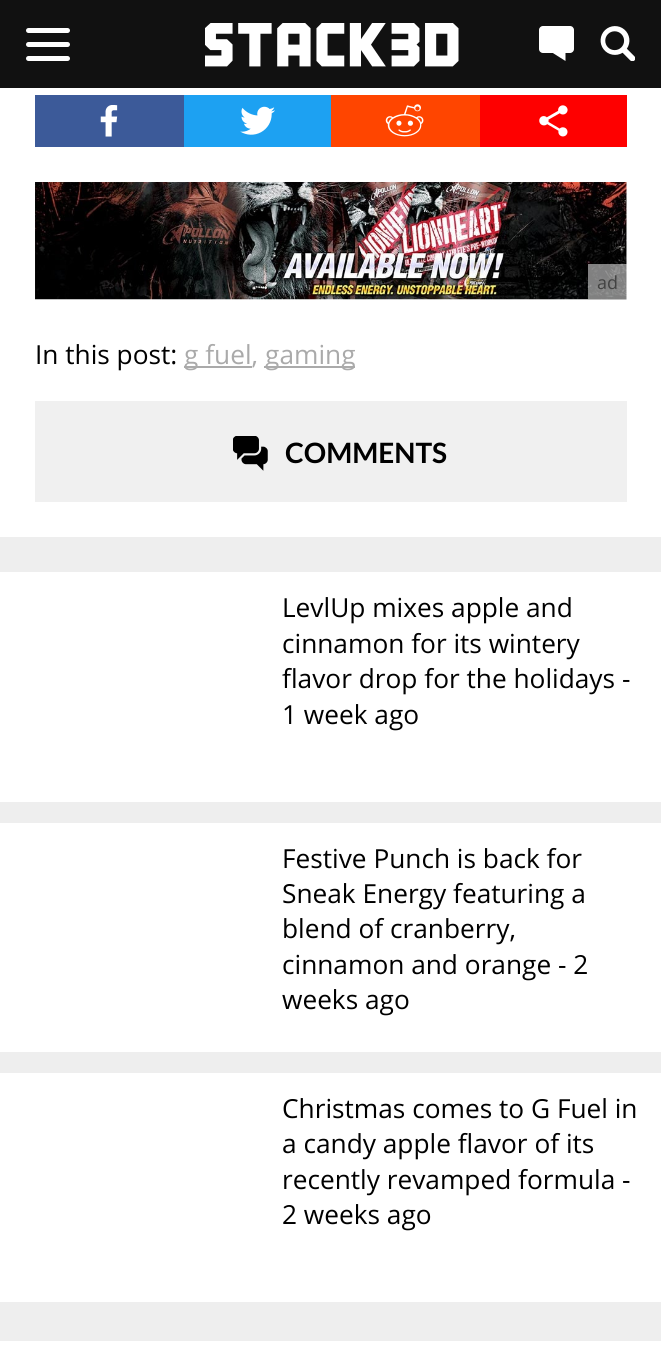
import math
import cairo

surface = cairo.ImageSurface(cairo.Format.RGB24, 661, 1347)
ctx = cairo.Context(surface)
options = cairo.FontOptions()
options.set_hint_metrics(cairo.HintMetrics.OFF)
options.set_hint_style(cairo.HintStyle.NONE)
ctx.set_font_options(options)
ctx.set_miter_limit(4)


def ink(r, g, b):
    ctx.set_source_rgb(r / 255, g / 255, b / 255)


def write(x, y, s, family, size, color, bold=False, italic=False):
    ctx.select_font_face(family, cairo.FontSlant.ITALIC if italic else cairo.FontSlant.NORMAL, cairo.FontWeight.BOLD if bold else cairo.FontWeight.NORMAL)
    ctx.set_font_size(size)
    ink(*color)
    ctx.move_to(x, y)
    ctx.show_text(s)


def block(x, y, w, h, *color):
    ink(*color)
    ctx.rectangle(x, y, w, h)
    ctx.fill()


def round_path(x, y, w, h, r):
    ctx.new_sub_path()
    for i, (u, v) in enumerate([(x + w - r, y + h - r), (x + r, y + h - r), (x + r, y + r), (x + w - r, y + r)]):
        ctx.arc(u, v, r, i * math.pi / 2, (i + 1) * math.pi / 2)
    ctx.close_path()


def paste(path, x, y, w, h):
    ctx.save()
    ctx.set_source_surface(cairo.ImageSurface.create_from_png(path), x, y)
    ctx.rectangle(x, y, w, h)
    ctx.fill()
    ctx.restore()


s1 = dict(family="Open Sans", size=18, color=(66, 66, 66))
s2 = dict(family="Open Sans", size=26.25, color=(0, 0, 0))
s3 = dict(family="Open Sans", size=26.25, color=(170, 170, 170))
s4 = dict(family="Lato", size=28, color=(0, 0, 0), bold=True)

ink(238, 238, 238)
ctx.paint()
block(0, 0, 661, 88, 17, 17, 17)
ink(255, 255, 255)
round_path(26, 42, 44, 5, 2.5)
ctx.fill()
round_path(26, 28, 44, 5, 2.5)
ctx.fill()
round_path(26, 56, 44, 5, 2.5)
ctx.fill()
paste("pic1.png", 205, 23, 254, 44)
round_path(539, 26, 35, 27, 4)
ctx.fill()
ctx.new_path()
ctx.move_to(565.5, 61)
ctx.line_to(565.5, 52.5)
ctx.line_to(552, 52.5)
ctx.close_path()
ctx.fill()
paste("pic2.png", 600, 26, 35, 35)
block(0, 88, 661, 449, 255, 255, 255)
block(35, 95, 149, 52, 60, 90, 153)
block(184, 95, 147, 52, 29, 161, 242)
block(331, 95, 149, 52, 255, 69, 0)
block(480, 95, 147, 52, 254, 0, 0)
paste("pic3.png", 100, 105, 18, 32)
paste("pic4.png", 240, 106, 35, 29)
paste("pic5.png", 385, 104, 39, 33)
paste("pic6.png", 539, 105, 29, 32)
paste("pic7.png", 35, 182, 592, 118)
ctx.set_source_rgba(1, 1, 1, 0.5)
ctx.rectangle(588, 264, 39, 35)
ctx.fill()
write(597, 289, "ad", **s1)
write(35, 364, "In this post:", **s2)
block(184, 366, 68, 2, 170, 170, 170)
write(184, 364, "g fuel,", **s3)
block(264, 366, 91, 2, 170, 170, 170)
write(265, 364, "gaming", **s3)
block(35, 401, 592, 101, 240, 240, 240)
paste("pic8.png", 233, 436, 35, 35)
write(285, 463, "COMMENTS", **s4)
block(0, 572, 661, 230, 255, 255, 255)
write(282, 617, "LevlUp mixes apple and", **s2)
write(282, 653, "cinnamon for its wintery", **s2)
write(282, 688, "flavor drop for the holidays -", **s2)
write(282, 724, "1 week ago", **s2)
block(0, 823, 661, 229, 255, 255, 255)
write(282, 868, "Festive Punch is back for", **s2)
write(282, 903, "Sneak Energy featuring a", **s2)
write(282, 938, "blend of cranberry,", **s2)
write(282, 974, "cinnamon and orange - 2", **s2)
write(282, 1009, "weeks ago", **s2)
block(0, 1073, 661, 229, 255, 255, 255)
write(282, 1118, "Christmas comes to G Fuel in", **s2)
write(282, 1153, "a candy apple flavor of its", **s2)
write(282, 1189, "recently revamped formula -", **s2)
write(282, 1224, "2 weeks ago", **s2)
block(0, 1341, 661, 6, 255, 255, 255)
surface.write_to_png("screenshot.png")
